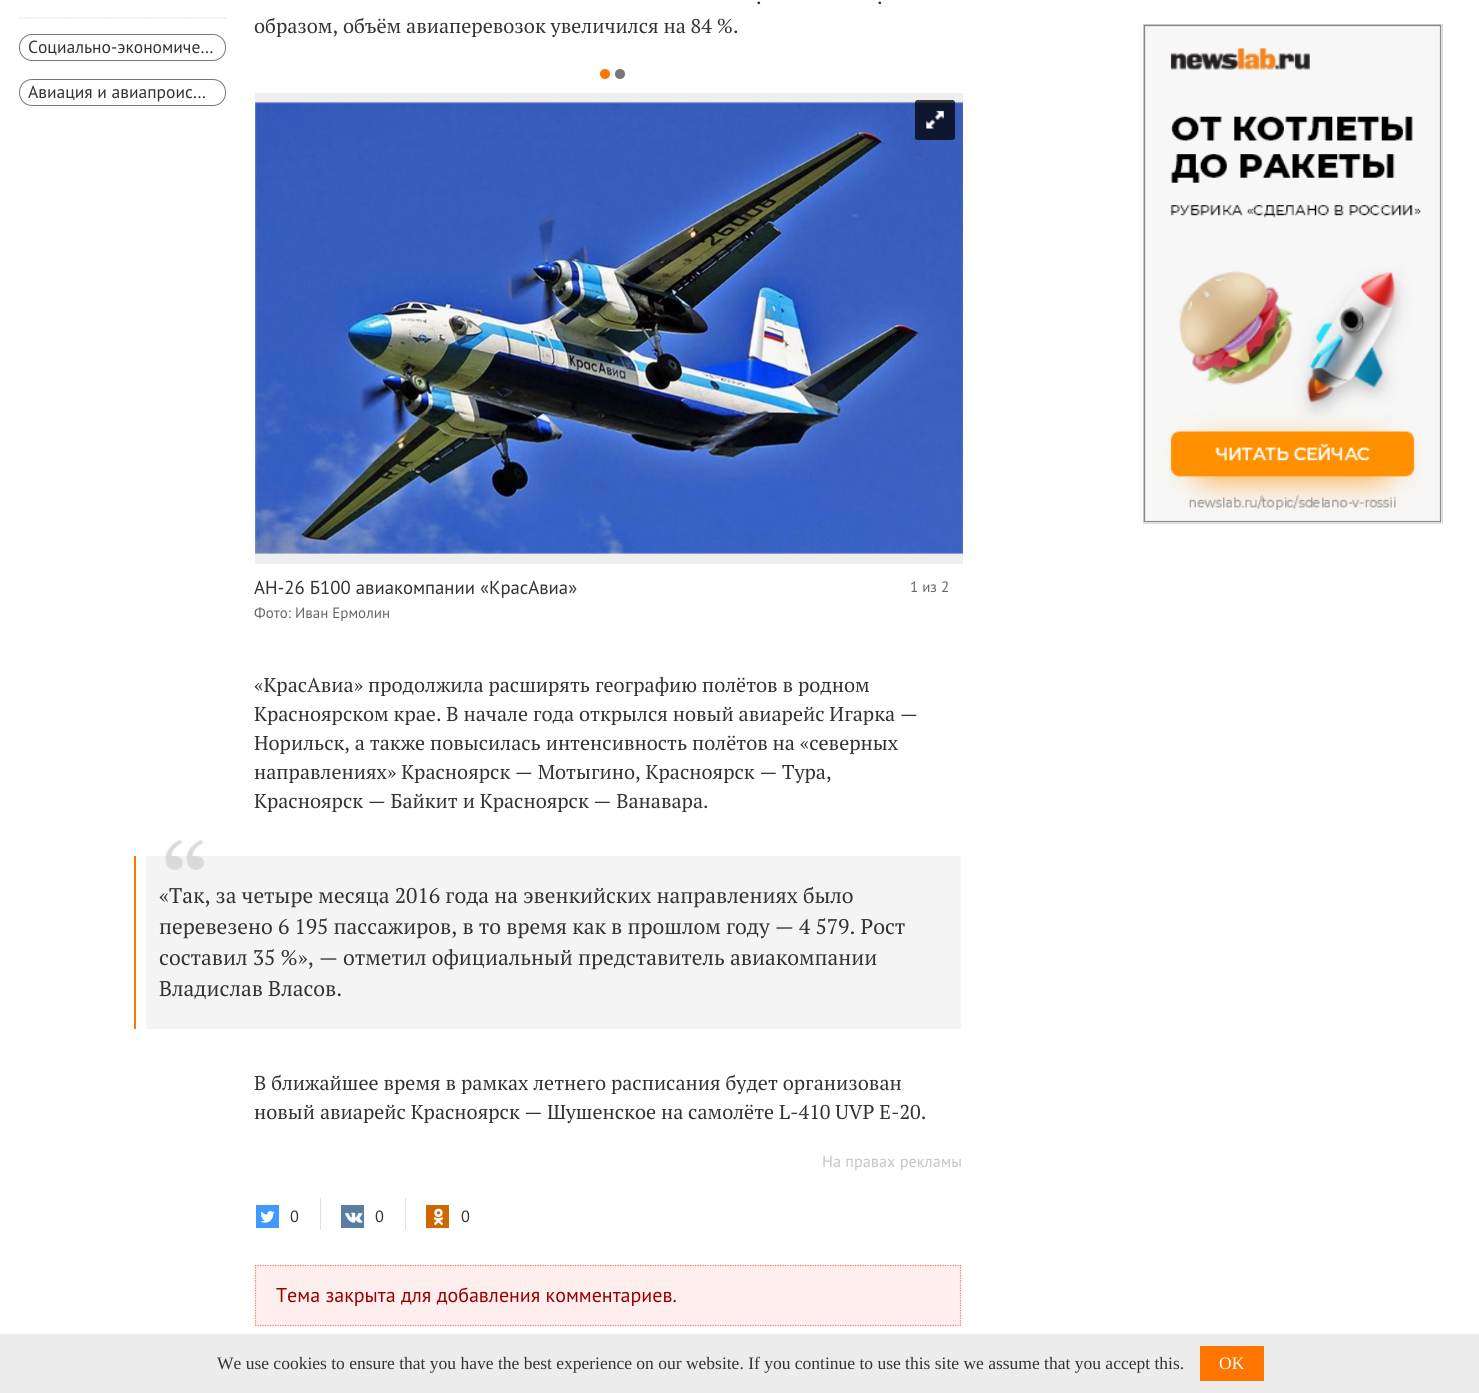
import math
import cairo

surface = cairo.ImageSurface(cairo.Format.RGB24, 1479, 1393)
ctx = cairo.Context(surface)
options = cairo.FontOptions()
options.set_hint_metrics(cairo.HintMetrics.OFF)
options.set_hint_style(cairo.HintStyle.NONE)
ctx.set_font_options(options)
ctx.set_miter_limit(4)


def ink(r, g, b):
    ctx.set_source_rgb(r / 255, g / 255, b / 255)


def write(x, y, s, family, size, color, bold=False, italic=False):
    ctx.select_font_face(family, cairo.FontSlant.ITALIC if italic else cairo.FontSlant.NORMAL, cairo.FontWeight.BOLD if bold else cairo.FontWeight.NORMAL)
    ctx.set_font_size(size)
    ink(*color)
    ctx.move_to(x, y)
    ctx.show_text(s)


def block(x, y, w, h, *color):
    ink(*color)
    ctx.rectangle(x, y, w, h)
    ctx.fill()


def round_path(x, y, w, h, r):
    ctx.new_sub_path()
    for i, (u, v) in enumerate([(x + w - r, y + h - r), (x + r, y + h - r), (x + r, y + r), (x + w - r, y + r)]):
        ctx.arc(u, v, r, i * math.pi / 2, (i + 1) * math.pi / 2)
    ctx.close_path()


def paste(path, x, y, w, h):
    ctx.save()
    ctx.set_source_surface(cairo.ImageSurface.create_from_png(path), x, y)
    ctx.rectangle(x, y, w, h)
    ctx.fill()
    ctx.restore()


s1 = dict(family="PT Sans", size=17.5, color=(51, 51, 51))
s2 = dict(family="PT Serif", size=20, color=(51, 51, 51))
s3 = dict(family="PT Sans", size=18.75, color=(51, 51, 51))
s4 = dict(family="PT Sans", size=15, color=(102, 102, 102))
s5 = dict(family="PT Serif", size=21.25, color=(51, 51, 51))
s6 = dict(family="PT Sans", size=16.25, color=(197, 197, 197))
s7 = dict(family="PT Sans", size=16.25, color=(51, 51, 51))
s8 = dict(family="PT Sans", size=20, color=(153, 0, 0))
s9 = dict(family="Liberation Serif", size=17.5, color=(51, 51, 51))
s10 = dict(family="Liberation Serif", size=17.5, color=(255, 255, 255))

ink(255, 255, 255)
ctx.paint()
ctx.new_path()
ctx.move_to(19, 18)
ctx.line_to(226, 18)
ink(223, 223, 223)
ctx.set_line_width(1.2)
ctx.set_dash([1.25, 1.25])
ctx.stroke()
round_path(19.5, 34.5, 206, 26, 12.5)
ink(119, 119, 119)
ctx.set_line_width(1)
ctx.set_dash([])
ctx.stroke()
write(28, 53, "Социально-экономиче…", **s1)
round_path(19.5, 79.5, 206, 26, 12.5)
ink(119, 119, 119)
ctx.stroke()
write(28, 98, "Авиация и авиапроис…", **s1)
write(756, 4, ".", **s2)
write(877, 4, ".", **s2)
write(254, 33, "образом, объём авиаперевозок увеличился на 84 %.", **s2)
ink(255, 117, 0)
ctx.new_path()
ctx.arc(605, 74, 5, 0, 2 * math.pi)
ctx.fill()
ink(119, 119, 119)
ctx.arc(620, 74, 5, 0, 2 * math.pi)
ctx.fill()
block(255, 93, 708, 471, 238, 238, 238)
paste("pic2.png", 255, 101, 708, 453)
ctx.set_source_rgba(0, 0, 0, 0.75)
round_path(915, 100, 40, 40, 2.5)
ctx.fill()
paste("pic1.png", 925, 110, 20, 19)
write(254, 594, "АН-26 Б100 авиакомпании «КрасАвиа»", **s3)
write(254, 618, "Фото: Иван Ермолин", **s4)
write(910, 592, "1 из 2", **s4)
write(254, 692, "«КрасАвиа» продолжила расширять географию полётов в родном", **s2)
write(254, 721, "Красноярском крае. В начале года открылся новый авиарейс Игарка —", **s2)
write(254, 750, "Норильск, а также повысилась интенсивность полётов на «северных", **s2)
write(254, 779, "направлениях» Красноярск — Мотыгино, Красноярск — Тура,", **s2)
write(254, 808, "Красноярск — Байкит и Красноярск — Ванавара.", **s2)
ink(255, 117, 0)
ctx.new_path()
ctx.move_to(134, 856)
ctx.line_to(134, 1029)
ctx.line_to(959, 1029)
ctx.line_to(136, 1029)
ctx.line_to(136, 856)
ctx.line_to(959, 856)
ctx.close_path()
ctx.fill()
block(146, 856, 815, 173, 244, 244, 244)
paste("pic3.png", 165, 839, 39, 31)
write(159, 903, "«Так, за четыре месяца 2016 года на эвенкийских направлениях было", **s5)
write(159, 934, "перевезено 6 195 пассажиров, в то время как в прошлом году — 4 579. Рост", **s5)
write(159, 965, "составил 35 %», — отметил официальный представитель авиакомпании", **s5)
write(159, 996, "Владислав Власов.", **s5)
write(254, 1090, "В ближайшее время в рамках летнего расписания будет организован", **s2)
write(254, 1119, "новый авиарейс Красноярск — Шушенское на самолёте L-410 UVP E-20.", **s2)
write(822, 1167, "На правах рекламы", **s6)
block(256, 1205, 23, 23, 64, 153, 255)
paste("pic4.png", 260, 1211, 15, 12)
write(290, 1222, "0", **s7)
block(320, 1198, 1, 32, 225, 225, 225)
block(341, 1205, 23, 23, 89, 125, 163)
paste("pic5.png", 345, 1212, 18, 11)
write(375, 1222, "0", **s7)
block(405, 1198, 1, 32, 225, 225, 225)
block(426, 1205, 23, 23, 207, 103, 0)
paste("pic6.png", 433, 1208, 11, 17)
write(461, 1222, "0", **s7)
block(255, 1265, 706, 61, 255, 238, 238)
ctx.new_path()
ctx.move_to(255, 1265.5)
ctx.line_to(961, 1265.5)
ink(255, 119, 119)
ctx.set_line_width(1.2)
ctx.set_dash([1.25, 1.25])
ctx.stroke()
ctx.new_path()
ctx.move_to(960.5, 1265)
ctx.line_to(960.5, 1326)
ctx.stroke()
ctx.new_path()
ctx.move_to(255, 1325.5)
ctx.line_to(961, 1325.5)
ctx.stroke()
ctx.new_path()
ctx.move_to(255.5, 1265)
ctx.line_to(255.5, 1326)
ctx.stroke()
write(276, 1302, "Тема закрыта для добавления комментариев.", **s8)
ctx.rectangle(1143.5, 24.5, 299, 499)
ink(221, 221, 221)
ctx.set_line_width(1)
ctx.set_dash([])
ctx.stroke()
paste("pic7.png", 1143, 24, 299, 499)
block(0, 1334, 1479, 59, 236, 236, 236)
write(217, 1369, "We use cookies to ensure that you have the best experience on our website. If you continue to use this site we assume that you accept this.", **s9)
block(1200, 1346, 64, 35, 255, 117, 0)
write(1219, 1369, "OK", **s10)
surface.write_to_png("screenshot.png")
